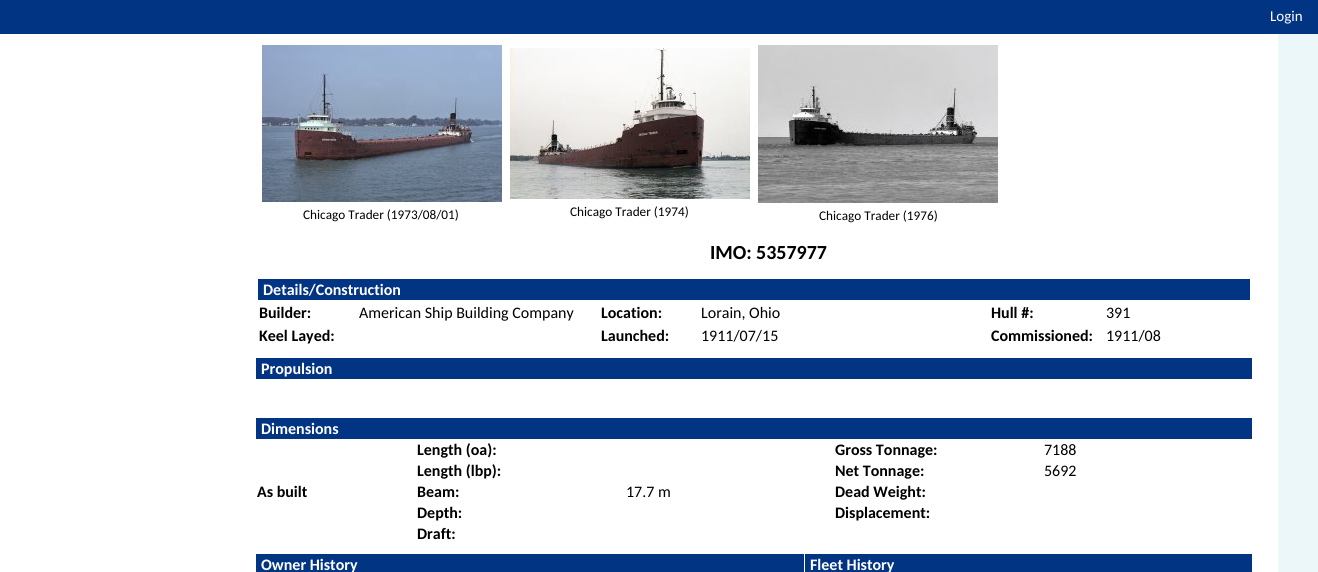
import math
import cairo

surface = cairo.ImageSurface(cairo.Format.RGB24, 1318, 572)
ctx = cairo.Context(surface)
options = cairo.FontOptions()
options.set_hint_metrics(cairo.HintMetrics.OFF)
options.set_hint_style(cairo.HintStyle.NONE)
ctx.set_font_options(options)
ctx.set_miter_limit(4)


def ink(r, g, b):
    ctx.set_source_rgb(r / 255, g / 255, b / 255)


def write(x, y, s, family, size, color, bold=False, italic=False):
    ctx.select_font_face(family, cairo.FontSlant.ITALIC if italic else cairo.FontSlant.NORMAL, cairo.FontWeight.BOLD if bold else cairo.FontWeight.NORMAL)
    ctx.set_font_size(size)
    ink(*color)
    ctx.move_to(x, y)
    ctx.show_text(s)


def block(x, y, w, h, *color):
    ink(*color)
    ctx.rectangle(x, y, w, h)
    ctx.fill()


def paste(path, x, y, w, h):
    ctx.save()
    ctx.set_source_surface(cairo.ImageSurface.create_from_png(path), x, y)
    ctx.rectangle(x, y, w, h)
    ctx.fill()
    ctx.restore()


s1 = dict(family="Carlito", size=15, color=(255, 255, 255))
s2 = dict(family="Carlito", size=13.25, color=(0, 0, 0))
s3 = dict(family="Carlito", size=20, color=(0, 0, 0), bold=True)
s4 = dict(family="Carlito", size=16, color=(255, 255, 255), bold=True)
s5 = dict(family="Carlito", size=16, color=(0, 0, 0), bold=True)
s6 = dict(family="Carlito", size=16, color=(0, 0, 0))

ink(235, 247, 249)
ctx.paint()
block(0, 0, 1318, 34, 2, 52, 132)
write(1270, 21, "Login", **s1)
block(0, 34, 1278, 538, 255, 255, 255)
paste("pic1.png", 262, 45, 240, 157)
write(303, 219, "Chicago Trader (1973/08/01)", **s2)
paste("pic2.png", 510, 48, 240, 151)
write(570, 216, "Chicago Trader (1974)", **s2)
paste("pic3.png", 758, 45, 240, 158)
write(819, 220, "Chicago Trader (1976)", **s2)
write(710, 259, "IMO:", **s3)
write(756, 259, "5357977", **s3)
block(258, 279, 992, 21, 2, 52, 132)
write(263, 295, "Details/Construction", **s4)
write(259, 318, "Builder:", **s5)
write(359, 318, "American Ship Building Company", **s6)
write(601, 318, "Location:", **s5)
write(701, 318, "Lorain, Ohio", **s6)
write(991, 318, "Hull #:", **s5)
write(1106, 318, "391", **s6)
write(259, 341, "Keel Layed:", **s5)
write(601, 341, "Launched:", **s5)
write(701, 341, "1911/07/15", **s6)
write(991, 341, "Commissioned:", **s5)
write(1106, 341, "1911/08", **s6)
block(256, 358, 996, 21, 2, 52, 132)
write(261, 374, "Propulsion", **s4)
block(256, 418, 996, 21, 2, 52, 132)
write(261, 434, "Dimensions", **s4)
write(417, 455, "Length (oa):", **s5)
write(835, 455, "Gross Tonnage:", **s5)
write(1044, 455, "7188", **s6)
write(257, 497, "As built", **s5)
write(417, 476, "Length (lbp):", **s5)
write(835, 476, "Net Tonnage:", **s5)
write(1044, 476, "5692", **s6)
write(417, 497, "Beam:", **s5)
write(626, 497, "17.7 m", **s6)
write(835, 497, "Dead Weight:", **s5)
write(417, 518, "Depth:", **s5)
write(835, 518, "Displacement:", **s5)
write(417, 539, "Draft:", **s5)
block(256, 554, 548, 18, 2, 52, 132)
write(261, 570, "Owner History", **s4)
block(805, 554, 447, 18, 2, 52, 132)
write(810, 570, "Fleet History", **s4)
surface.write_to_png("screenshot.png")
